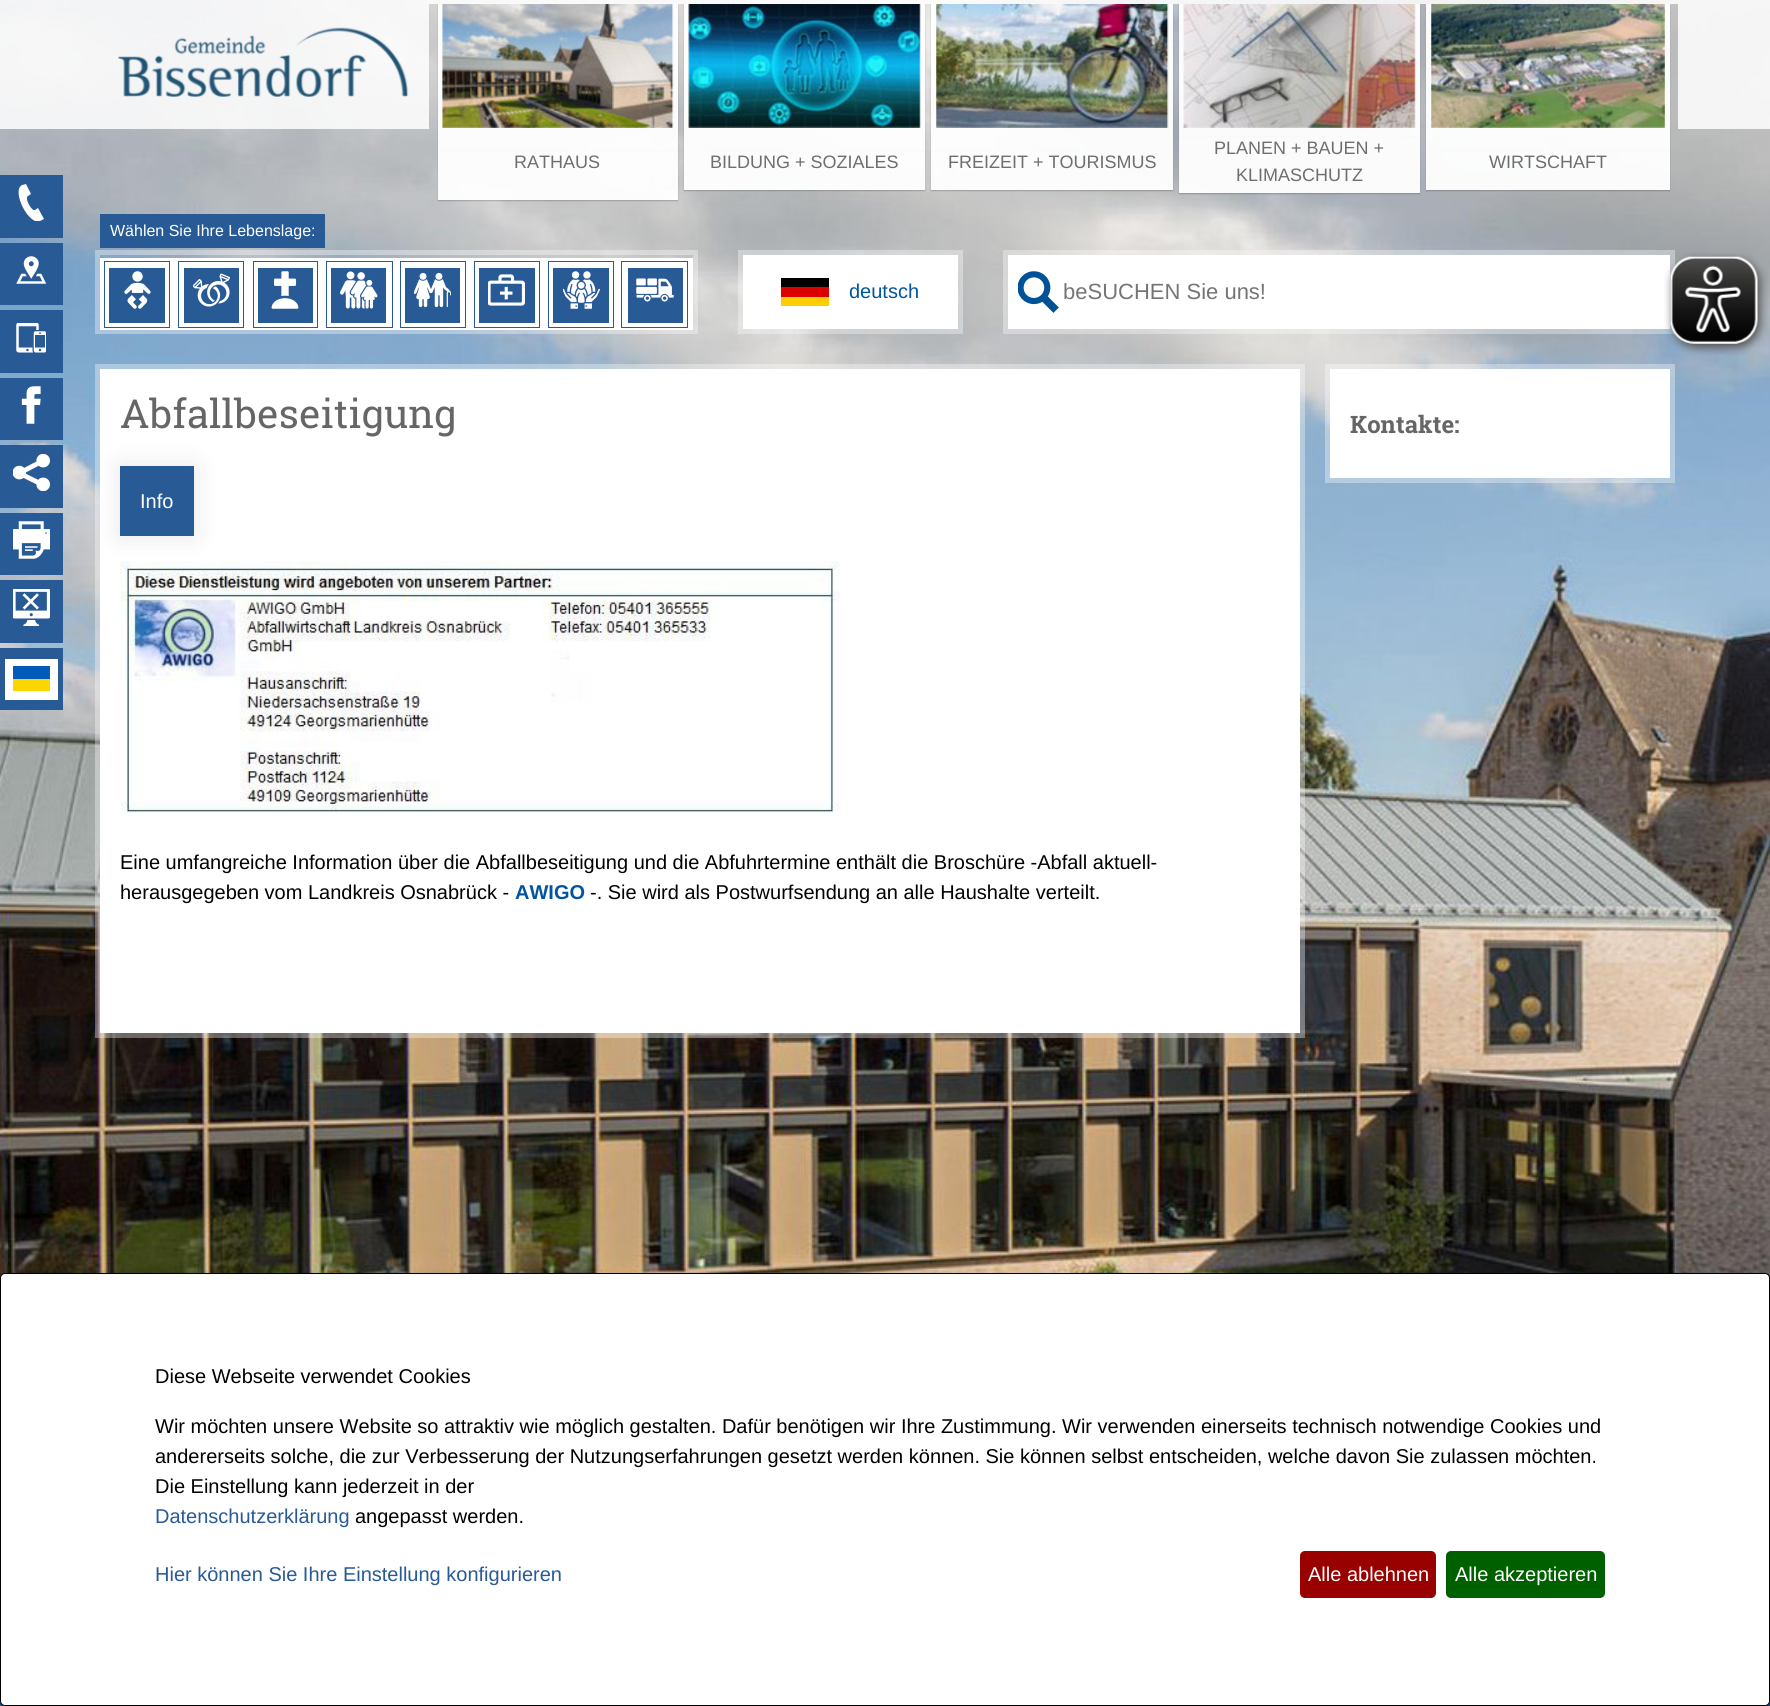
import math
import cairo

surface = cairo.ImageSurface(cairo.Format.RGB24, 1770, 1706)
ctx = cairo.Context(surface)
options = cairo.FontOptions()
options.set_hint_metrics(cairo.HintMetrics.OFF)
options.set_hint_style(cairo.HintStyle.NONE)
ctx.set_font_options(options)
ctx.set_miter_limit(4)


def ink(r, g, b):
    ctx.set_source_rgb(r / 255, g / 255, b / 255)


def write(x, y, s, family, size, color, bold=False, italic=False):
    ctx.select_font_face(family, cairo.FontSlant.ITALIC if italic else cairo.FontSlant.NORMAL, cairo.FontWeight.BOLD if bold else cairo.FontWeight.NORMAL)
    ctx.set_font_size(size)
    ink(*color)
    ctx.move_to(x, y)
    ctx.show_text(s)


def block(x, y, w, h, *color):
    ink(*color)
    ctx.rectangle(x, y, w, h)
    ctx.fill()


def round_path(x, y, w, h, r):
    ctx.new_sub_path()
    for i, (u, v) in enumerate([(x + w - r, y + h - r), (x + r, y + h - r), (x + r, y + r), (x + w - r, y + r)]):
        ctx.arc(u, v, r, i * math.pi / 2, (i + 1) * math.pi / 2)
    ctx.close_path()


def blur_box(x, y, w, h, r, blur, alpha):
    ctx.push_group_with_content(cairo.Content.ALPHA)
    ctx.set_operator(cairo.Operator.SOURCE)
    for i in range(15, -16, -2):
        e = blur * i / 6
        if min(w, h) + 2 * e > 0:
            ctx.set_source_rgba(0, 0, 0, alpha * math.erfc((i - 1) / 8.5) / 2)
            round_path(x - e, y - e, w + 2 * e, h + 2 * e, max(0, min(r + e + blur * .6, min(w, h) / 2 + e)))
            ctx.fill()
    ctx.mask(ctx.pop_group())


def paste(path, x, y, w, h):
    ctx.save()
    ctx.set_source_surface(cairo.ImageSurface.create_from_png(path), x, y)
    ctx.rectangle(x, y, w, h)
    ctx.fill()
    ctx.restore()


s1 = dict(family="Liberation Sans", size=18, color=(110, 110, 110))
s2 = dict(family="Liberation Sans", size=16, color=(255, 255, 255))
s3 = dict(family="Liberation Sans", size=20, color=(0, 85, 158))
s4 = dict(family="Liberation Sans", size=22, color=(117, 117, 117))
s5 = dict(family="Roboto Slab", size=40, color=(102, 102, 102))
s6 = dict(family="Liberation Sans", size=20, color=(255, 255, 255))
s7 = dict(family="Liberation Sans", size=20, color=(0, 0, 0))
s8 = dict(family="Liberation Sans", size=20, color=(0, 85, 158), bold=True)
s9 = dict(family="Roboto Slab", size=24, color=(102, 102, 102), bold=True)
s10 = dict(family="Liberation Sans", size=20, color=(40, 90, 150))

ink(255, 255, 255)
ctx.paint()
paste("pic1.png", 0, 0, 1770, 1278)
ctx.set_source_rgba(1, 1, 1, 0.85)
ctx.rectangle(0, 0, 1770, 4)
ctx.fill()
ctx.rectangle(0, 4, 95, 125)
ctx.fill()
ctx.rectangle(1678, 4, 92, 125)
ctx.fill()
ctx.rectangle(95, 4, 334, 125)
ctx.fill()
paste("pic2.png", 118, 27, 291, 70)
ctx.save()
ctx.set_fill_rule(cairo.FillRule.EVEN_ODD)
ctx.new_path()
ctx.move_to(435, 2)
ctx.line_to(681, 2)
ctx.line_to(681, 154)
ctx.line_to(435, 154)
ctx.close_path()
ctx.move_to(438, 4)
ctx.line_to(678, 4)
ctx.line_to(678, 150)
ctx.line_to(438, 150)
ctx.close_path()
ctx.clip()
ink(0, 0, 0)
blur_box(438, 5, 240, 146, 0, 0.5, 0.2)
ctx.restore()
ctx.set_source_rgba(1, 1, 1, 0.95)
ctx.rectangle(438, 4, 240, 146)
ctx.fill()
paste("pic3.png", 442, 4, 232, 124)
ctx.save()
ctx.set_fill_rule(cairo.FillRule.EVEN_ODD)
ctx.new_path()
ctx.move_to(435, 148)
ctx.line_to(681, 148)
ctx.line_to(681, 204)
ctx.line_to(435, 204)
ctx.close_path()
ctx.move_to(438, 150)
ctx.line_to(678, 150)
ctx.line_to(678, 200)
ctx.line_to(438, 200)
ctx.close_path()
ctx.clip()
ink(0, 0, 0)
blur_box(438, 151, 240, 50, 0, 0.5, 0.2)
ctx.restore()
ctx.rectangle(438, 150, 240, 50)
ctx.fill()
write(514, 168, "RATHAUS", **s1)
ctx.save()
ctx.set_fill_rule(cairo.FillRule.EVEN_ODD)
ctx.new_path()
ctx.move_to(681, 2)
ctx.line_to(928, 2)
ctx.line_to(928, 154)
ctx.line_to(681, 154)
ctx.close_path()
ctx.move_to(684, 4)
ctx.line_to(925, 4)
ctx.line_to(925, 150)
ctx.line_to(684, 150)
ctx.close_path()
ctx.clip()
ink(0, 0, 0)
blur_box(684, 5, 241, 146, 0, 0.5, 0.2)
ctx.restore()
ctx.set_source_rgba(1, 1, 1, 0.95)
ctx.rectangle(684, 4, 241, 146)
ctx.fill()
paste("pic4.png", 688, 4, 233, 124)
ctx.save()
ctx.set_fill_rule(cairo.FillRule.EVEN_ODD)
ctx.new_path()
ctx.move_to(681, 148)
ctx.line_to(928, 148)
ctx.line_to(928, 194)
ctx.line_to(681, 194)
ctx.close_path()
ctx.move_to(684, 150)
ctx.line_to(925, 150)
ctx.line_to(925, 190)
ctx.line_to(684, 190)
ctx.close_path()
ctx.clip()
ink(0, 0, 0)
blur_box(684, 151, 241, 40, 0, 0.5, 0.2)
ctx.restore()
ctx.rectangle(684, 150, 241, 40)
ctx.fill()
write(710, 168, "BILDUNG + SOZIALES", **s1)
ctx.save()
ctx.set_fill_rule(cairo.FillRule.EVEN_ODD)
ctx.new_path()
ctx.move_to(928, 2)
ctx.line_to(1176, 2)
ctx.line_to(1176, 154)
ctx.line_to(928, 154)
ctx.close_path()
ctx.move_to(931, 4)
ctx.line_to(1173, 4)
ctx.line_to(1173, 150)
ctx.line_to(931, 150)
ctx.close_path()
ctx.clip()
ink(0, 0, 0)
blur_box(931, 5, 242, 146, 0, 0.5, 0.2)
ctx.restore()
ctx.set_source_rgba(1, 1, 1, 0.95)
ctx.rectangle(931, 4, 242, 146)
ctx.fill()
paste("pic5.png", 936, 4, 233, 124)
ctx.save()
ctx.set_fill_rule(cairo.FillRule.EVEN_ODD)
ctx.new_path()
ctx.move_to(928, 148)
ctx.line_to(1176, 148)
ctx.line_to(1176, 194)
ctx.line_to(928, 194)
ctx.close_path()
ctx.move_to(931, 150)
ctx.line_to(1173, 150)
ctx.line_to(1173, 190)
ctx.line_to(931, 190)
ctx.close_path()
ctx.clip()
ink(0, 0, 0)
blur_box(931, 151, 242, 40, 0, 0.5, 0.2)
ctx.restore()
ctx.rectangle(931, 150, 242, 40)
ctx.fill()
write(948, 168, "FREIZEIT + TOURISMUS", **s1)
ctx.save()
ctx.set_fill_rule(cairo.FillRule.EVEN_ODD)
ctx.new_path()
ctx.move_to(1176, 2)
ctx.line_to(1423, 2)
ctx.line_to(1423, 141)
ctx.line_to(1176, 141)
ctx.close_path()
ctx.move_to(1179, 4)
ctx.line_to(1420, 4)
ctx.line_to(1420, 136)
ctx.line_to(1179, 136)
ctx.close_path()
ctx.clip()
ink(0, 0, 0)
blur_box(1179, 5, 241, 133, 0, 0.5, 0.2)
ctx.restore()
ctx.set_source_rgba(1, 1, 1, 0.95)
ctx.rectangle(1179, 4, 241, 132)
ctx.fill()
paste("pic6.png", 1183, 4, 233, 124)
ctx.save()
ctx.set_fill_rule(cairo.FillRule.EVEN_ODD)
ctx.new_path()
ctx.move_to(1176, 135)
ctx.line_to(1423, 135)
ctx.line_to(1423, 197)
ctx.line_to(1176, 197)
ctx.close_path()
ctx.move_to(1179, 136)
ctx.line_to(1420, 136)
ctx.line_to(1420, 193)
ctx.line_to(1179, 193)
ctx.close_path()
ctx.clip()
ink(0, 0, 0)
blur_box(1179, 138, 241, 56, 0, 0.5, 0.2)
ctx.restore()
ctx.rectangle(1179, 136, 241, 57)
ctx.fill()
write(1214, 154, "PLANEN + BAUEN +", **s1)
write(1236, 181, "KLIMASCHUTZ", **s1)
ctx.save()
ctx.set_fill_rule(cairo.FillRule.EVEN_ODD)
ctx.new_path()
ctx.move_to(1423, 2)
ctx.line_to(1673, 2)
ctx.line_to(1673, 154)
ctx.line_to(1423, 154)
ctx.close_path()
ctx.move_to(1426, 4)
ctx.line_to(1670, 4)
ctx.line_to(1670, 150)
ctx.line_to(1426, 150)
ctx.close_path()
ctx.clip()
ink(0, 0, 0)
blur_box(1426, 5, 244, 146, 0, 0.5, 0.2)
ctx.restore()
ctx.set_source_rgba(1, 1, 1, 0.95)
ctx.rectangle(1426, 4, 244, 146)
ctx.fill()
paste("pic7.png", 1431, 4, 234, 124)
ctx.save()
ctx.set_fill_rule(cairo.FillRule.EVEN_ODD)
ctx.new_path()
ctx.move_to(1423, 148)
ctx.line_to(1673, 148)
ctx.line_to(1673, 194)
ctx.line_to(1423, 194)
ctx.close_path()
ctx.move_to(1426, 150)
ctx.line_to(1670, 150)
ctx.line_to(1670, 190)
ctx.line_to(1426, 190)
ctx.close_path()
ctx.clip()
ink(0, 0, 0)
blur_box(1426, 151, 244, 40, 0, 0.5, 0.2)
ctx.restore()
ctx.rectangle(1426, 150, 244, 40)
ctx.fill()
write(1489, 168, "WIRTSCHAFT", **s1)
ctx.rectangle(97.5, 252.5, 598, 79)
ctx.set_source_rgba(1, 1, 1, 0.35)
ctx.set_line_width(5)
ctx.stroke()
block(100, 214, 225, 34, 40, 90, 150)
write(110, 236, "Wählen Sie Ihre Lebenslage:", **s2)
block(100, 258, 593, 72, 255, 255, 255)
ctx.rectangle(104.5, 261.5, 65, 66)
ink(40, 90, 150)
ctx.set_line_width(1)
ctx.stroke()
block(109, 268, 56, 55, 40, 90, 150)
paste("pic8.png", 124, 271, 27, 38)
ctx.rectangle(178.5, 261.5, 65, 66)
ctx.stroke()
block(184, 268, 55, 55, 40, 90, 150)
paste("pic9.png", 193, 273, 37, 34)
ctx.rectangle(253.5, 261.5, 64, 66)
ctx.stroke()
block(258, 268, 55, 55, 40, 90, 150)
paste("pic10.png", 271, 271, 28, 38)
ctx.rectangle(326.5, 261.5, 66, 66)
ctx.stroke()
block(331, 268, 55, 55, 40, 90, 150)
paste("pic11.png", 340, 271, 38, 38)
ctx.rectangle(400.5, 261.5, 65, 66)
ctx.stroke()
block(405, 268, 55, 55, 40, 90, 150)
paste("pic12.png", 414, 272, 37, 36)
ctx.rectangle(474.5, 261.5, 65, 66)
ctx.stroke()
block(479, 268, 56, 55, 40, 90, 150)
paste("pic13.png", 488, 274, 37, 32)
ctx.rectangle(548.5, 261.5, 65, 66)
ctx.stroke()
block(553, 268, 56, 55, 40, 90, 150)
paste("pic14.png", 563, 271, 37, 38)
ctx.rectangle(621.5, 261.5, 66, 66)
ctx.stroke()
block(628, 268, 55, 55, 40, 90, 150)
paste("pic15.png", 636, 278, 38, 24)
ctx.rectangle(740.5, 252.5, 220, 79)
ctx.set_source_rgba(1, 1, 1, 0.35)
ctx.set_line_width(5)
ctx.stroke()
block(743, 255, 215, 74, 255, 255, 255)
block(781, 278, 48, 9, 0, 0, 0)
block(781, 287, 48, 10, 221, 0, 0)
block(781, 297, 48, 9, 255, 206, 0)
write(849, 298, "deutsch", **s3)
ctx.rectangle(1005.5, 252.5, 667, 79)
ctx.set_source_rgba(1, 1, 1, 0.35)
ctx.stroke()
block(1008, 255, 662, 74, 255, 255, 255)
paste("pic16.png", 1018, 271, 41, 42)
write(1063, 299, "beSUCHEN Sie uns!", **s4)
block(0, 175, 63, 63, 40, 90, 150)
ctx.save()
ctx.rectangle(13, 184, 37, 37)
ctx.clip()
ink(255, 255, 255)
ctx.new_path()
ctx.move_to(44, 219)
ctx.line_to(38, 208)
ctx.line_to(35, 210)
ctx.curve_to(32, 212, 24, 198, 28, 196)
ctx.line_to(31, 194)
ctx.line_to(26, 184)
ctx.line_to(22, 185)
ctx.curve_to(11, 191, 29, 226, 40, 221)
ctx.close_path()
ctx.fill()
ctx.restore()
block(0, 243, 63, 62, 40, 90, 150)
paste("pic17.png", 16, 256, 30, 28)
block(0, 310, 63, 63, 40, 90, 150)
paste("pic18.png", 16, 323, 30, 30)
block(0, 378, 63, 62, 40, 90, 150)
paste("pic19.png", 21, 386, 20, 38)
block(0, 445, 63, 63, 40, 90, 150)
paste("pic20.png", 13, 454, 37, 37)
block(0, 513, 63, 62, 40, 90, 150)
paste("pic21.png", 13, 521, 37, 38)
block(0, 580, 63, 63, 40, 90, 150)
paste("pic22.png", 13, 589, 37, 37)
block(0, 648, 63, 62, 40, 90, 150)
block(5, 659, 53, 41, 255, 255, 255)
block(13, 666, 37, 13, 0, 91, 187)
block(13, 679, 37, 12, 255, 213, 0)
ctx.rectangle(97.5, 366.5, 1205, 669)
ctx.set_source_rgba(1, 1, 1, 0.35)
ctx.stroke()
block(100, 369, 1200, 664, 255, 255, 255)
write(120, 428, "Abfallbeseitigung", **s5)
paste("pic23.png", 120, 561, 720, 255)
ink(0, 0, 0)
blur_box(120, 466, 74, 70, 0, 12.5, 0.1)
block(120, 466, 74, 70, 40, 90, 150)
write(140, 508, "Info", **s6)
write(120, 869, "Eine umfangreiche Information über die Abfallbeseitigung und die Abfuhrtermine enthält die Broschüre -Abfall aktuell-", **s7)
write(120, 899, "herausgegeben vom Landkreis Osnabrück -", **s7)
write(515, 899, "AWIGO", **s8)
write(590, 899, "-. Sie wird als Postwurfsendung an alle Haushalte verteilt.", **s7)
ctx.rectangle(1327.5, 366.5, 345, 114)
ctx.set_source_rgba(1, 1, 1, 0.35)
ctx.stroke()
block(1330, 369, 340, 109, 255, 255, 255)
write(1350, 433, "Kontakte:", **s9)
block(0, 1701, 1770, 5, 40, 90, 150)
paste("pic24.png", 1664, 253, 104, 103)
ink(0, 0, 0)
blur_box(6, 1279, 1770, 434, 5, 6, 0.19)
blur_box(0, 1278, 1770, 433, 5, 4, 0.2)
ink(255, 255, 255)
round_path(0.5, 1273.5, 1769, 432, 4.5)
ctx.fill_preserve()
ink(0, 0, 0)
ctx.set_line_width(1)
ctx.stroke()
write(155, 1383, "Diese Webseite verwendet Cookies", **s7)
write(155, 1433, "Wir möchten unsere Website so attraktiv wie möglich gestalten. Dafür benötigen wir Ihre Zustimmung. Wir verwenden einerseits technisch notwendige Cookies und", **s7)
write(155, 1463, "andererseits solche, die zur Verbesserung der Nutzungserfahrungen gesetzt werden können. Sie können selbst entscheiden, welche davon Sie zulassen möchten.", **s7)
write(155, 1493, "Die Einstellung kann jederzeit in der", **s7)
write(155, 1523, "Datenschutzerklärung", **s10)
write(355, 1523, "angepasst werden.", **s7)
write(155, 1581, "Hier können Sie Ihre Einstellung konfigurieren", **s10)
ink(153, 0, 0)
round_path(1300, 1551, 136, 47, 5)
ctx.fill()
write(1308, 1581, "Alle ablehnen", **s6)
ink(0, 96, 0)
round_path(1446, 1551, 159, 47, 5)
ctx.fill()
write(1455, 1581, "Alle akzeptieren", **s6)
surface.write_to_png("screenshot.png")
